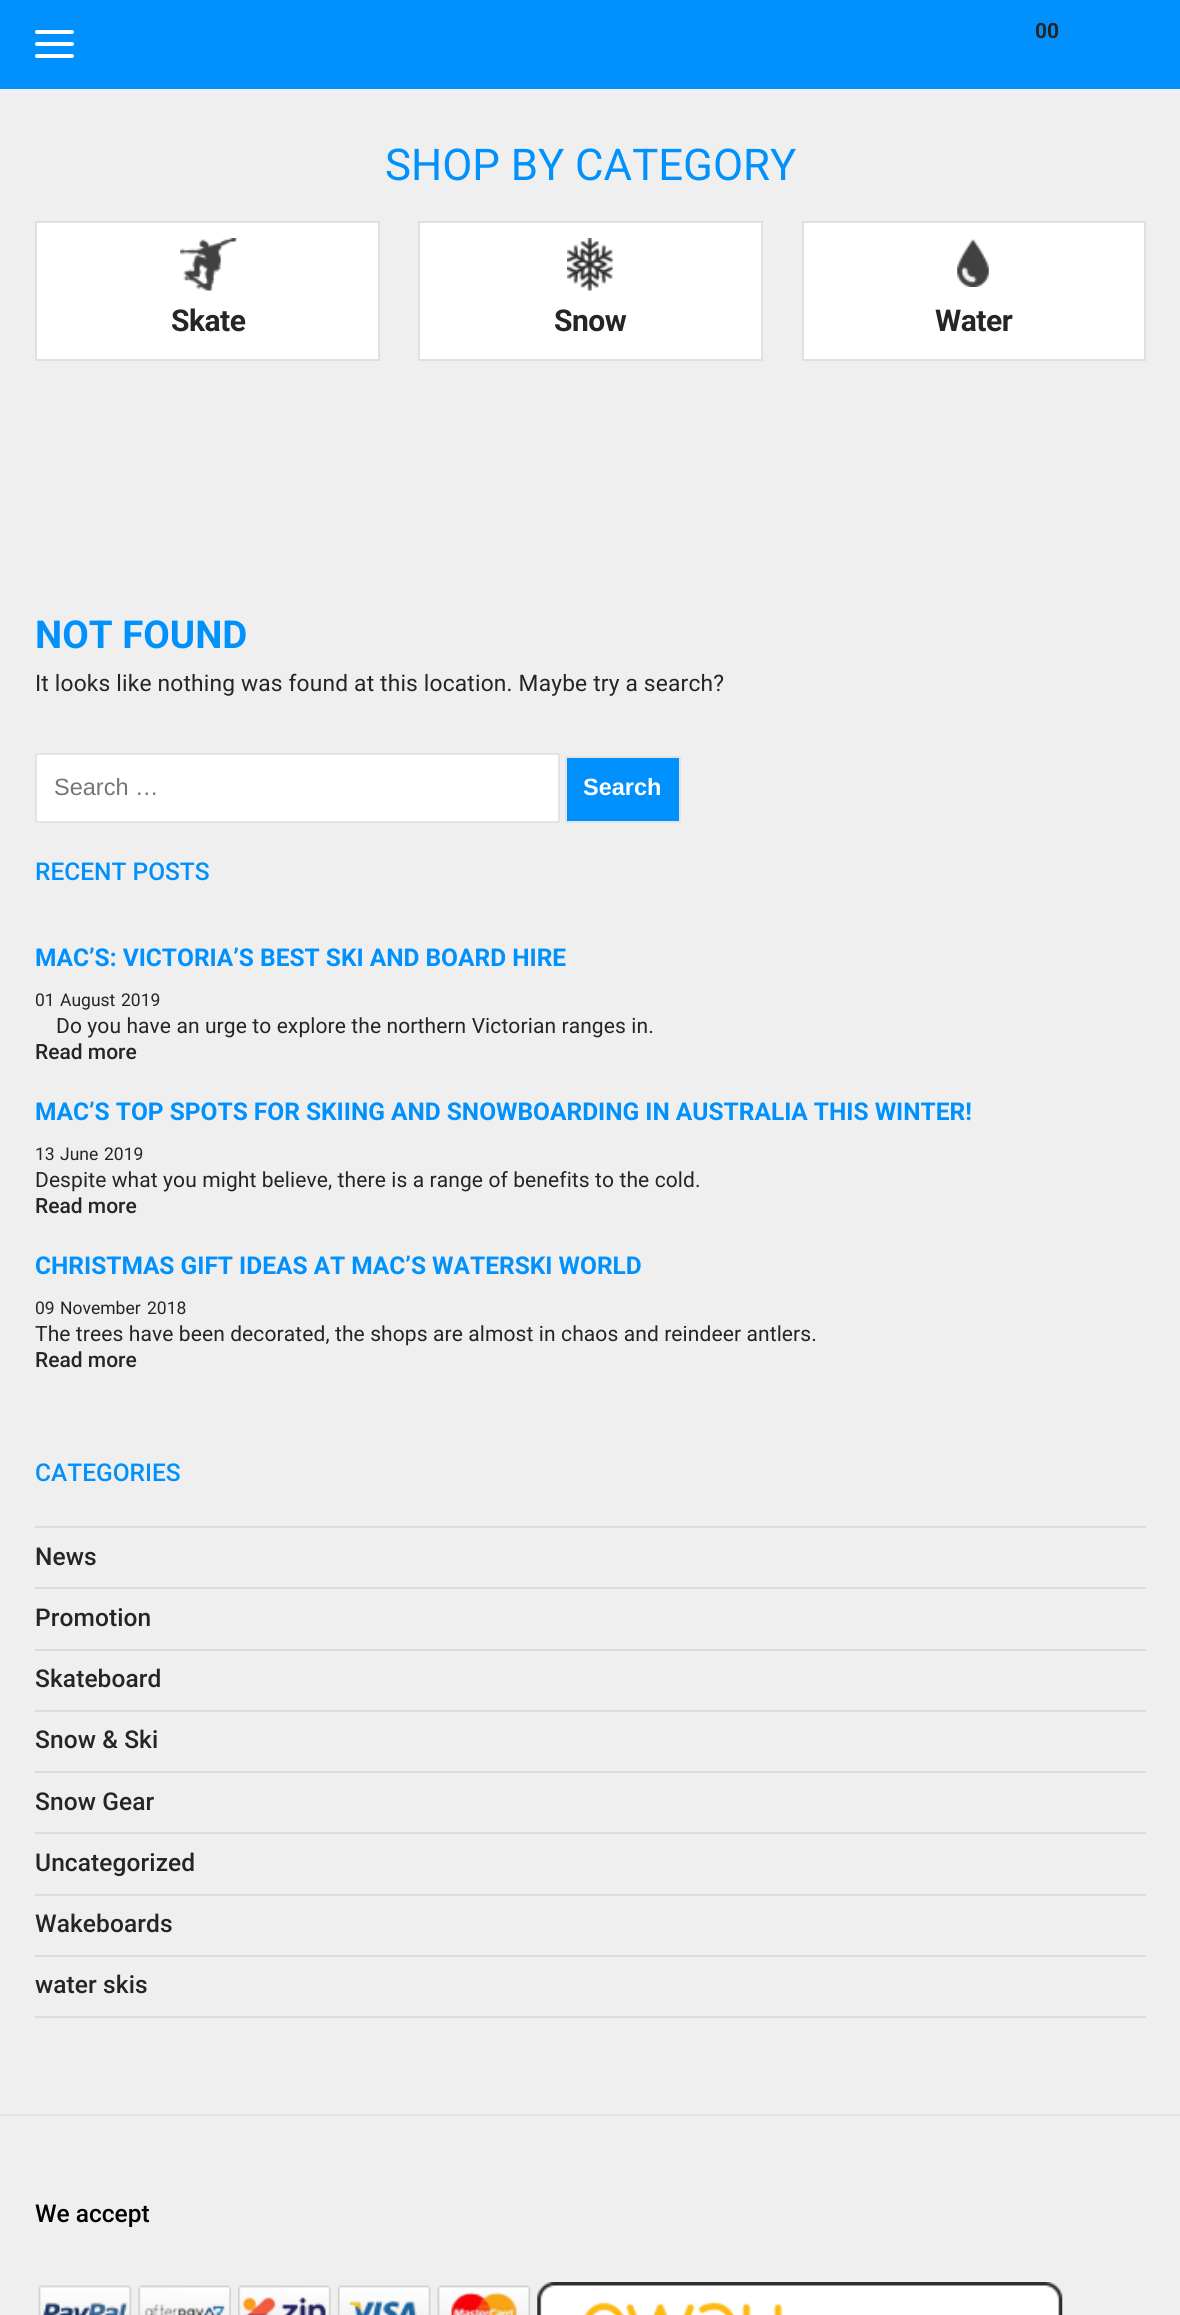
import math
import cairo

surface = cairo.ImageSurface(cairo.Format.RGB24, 1180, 2315)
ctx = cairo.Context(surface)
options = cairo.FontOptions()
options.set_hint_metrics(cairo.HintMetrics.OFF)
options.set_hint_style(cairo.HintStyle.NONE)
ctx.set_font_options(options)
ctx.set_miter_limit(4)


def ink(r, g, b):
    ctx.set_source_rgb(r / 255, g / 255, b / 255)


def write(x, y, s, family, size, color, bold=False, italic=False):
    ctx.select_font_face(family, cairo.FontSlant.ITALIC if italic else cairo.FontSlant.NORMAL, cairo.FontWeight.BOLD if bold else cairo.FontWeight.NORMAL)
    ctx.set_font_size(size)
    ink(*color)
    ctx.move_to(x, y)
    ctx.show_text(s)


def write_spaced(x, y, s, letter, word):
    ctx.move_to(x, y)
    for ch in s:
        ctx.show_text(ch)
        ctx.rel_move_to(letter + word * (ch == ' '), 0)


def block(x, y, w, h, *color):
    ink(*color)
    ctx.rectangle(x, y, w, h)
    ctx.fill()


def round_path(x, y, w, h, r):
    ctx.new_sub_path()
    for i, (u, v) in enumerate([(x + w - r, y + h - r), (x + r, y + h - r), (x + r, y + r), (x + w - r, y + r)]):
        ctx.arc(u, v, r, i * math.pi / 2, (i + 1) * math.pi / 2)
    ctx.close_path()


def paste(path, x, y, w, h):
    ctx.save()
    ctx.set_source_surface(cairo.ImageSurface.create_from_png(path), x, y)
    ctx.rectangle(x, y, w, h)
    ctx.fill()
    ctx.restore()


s1 = dict(family="Roboto", size=21, color=(37, 37, 37), bold=True)
s2 = dict(family="Roboto", size=43.75, color=(0, 145, 253))
s3 = dict(family="Roboto", size=38.5, color=(0, 145, 253), bold=True)
s4 = dict(family="Liberation Sans", size=23.5, color=(117, 117, 117))
s5 = dict(family="Liberation Sans", size=23.5, color=(255, 255, 255), bold=True)
s6 = dict(family="Roboto Medium", size=24.5, color=(0, 145, 253))
s7 = dict(family="Roboto", size=24.5, color=(0, 145, 253), bold=True)
s8 = dict(family="Roboto", size=17.5, color=(37, 37, 37))
s9 = dict(family="Roboto Medium", size=21, color=(37, 37, 37))
s10 = dict(family="Roboto Medium", size=24.5, color=(0, 0, 0))

ink(239, 239, 239)
ctx.paint()
block(0, 0, 1180, 89, 0, 145, 254)
ink(255, 255, 255)
round_path(35, 30, 39, 4, 2)
ctx.fill()
round_path(35, 42, 39, 4, 2)
ctx.fill()
round_path(35, 54, 39, 4, 2)
ctx.fill()
write(1035, 38, "00", **s1)
write(385, 180, "SHOP BY CATEGORY", **s2)
block(37, 223, 341, 136, 255, 255, 255)
paste("pic1.png", 180, 238, 57, 53)
ctx.rectangle(36, 222, 343, 138)
ink(224, 224, 224)
ctx.stroke()
ctx.select_font_face("Roboto", cairo.FontSlant.NORMAL, cairo.FontWeight.BOLD)
ctx.set_font_size(30)
ink(37, 37, 37)
write_spaced(171, 331, "Skate", -0.5, 0)
block(420, 223, 341, 136, 255, 255, 255)
paste("pic2.png", 567, 238, 46, 53)
ctx.rectangle(419, 222, 343, 138)
ink(224, 224, 224)
ctx.stroke()
ink(37, 37, 37)
write_spaced(554, 331, "Snow", -0.5, 0)
block(804, 223, 340, 136, 255, 255, 255)
paste("pic3.png", 957, 239, 32, 48)
ctx.rectangle(803, 222, 342, 138)
ink(224, 224, 224)
ctx.stroke()
ink(37, 37, 37)
write_spaced(935, 331, "Water", -0.5, 0)
write(35, 648, "NOT FOUND", **s3)
ctx.select_font_face("Roboto")
ctx.set_font_size(22.75)
ink(37, 37, 37)
write_spaced(35, 691, "It looks like nothing was found at this location. Maybe try a search?", 0.18, 0)
ink(255, 255, 255)
ctx.rectangle(36, 754, 523, 68)
ctx.fill_preserve()
ink(228, 228, 228)
ctx.stroke()
write(54, 795, "Search …", **s4)
ink(0, 145, 254)
ctx.rectangle(566, 757, 114, 65)
ctx.fill_preserve()
ink(228, 228, 228)
ctx.stroke()
write(583, 795, "Search", **s5)
write(35, 880, "RECENT POSTS", **s6)
write(35, 966, "MAC’S: VICTORIA’S BEST SKI AND BOARD HIRE", **s7)
write(35, 1006, "01", **s8)
write(60, 1006, "August", **s8)
write(121, 1006, "2019", **s8)
ctx.set_font_size(21)
write_spaced(56, 1033, "Do you have an urge to explore the northern Victorian ranges in.", 0.1, 0)
write(35, 1059, "Read more", **s9)
write(35, 1120, "MAC’S TOP SPOTS FOR SKIING AND SNOWBOARDING IN AUSTRALIA THIS WINTER!", **s7)
write(35, 1160, "13", **s8)
write(60, 1160, "June", **s8)
write(104, 1160, "2019", **s8)
ctx.set_font_size(21)
write_spaced(35, 1187, "Despite what you might believe, there is a range of benefits to the cold.", 0.1, 0)
write(35, 1213, "Read more", **s9)
write(35, 1274, "CHRISTMAS GIFT IDEAS AT MAC’S WATERSKI WORLD", **s7)
write(35, 1314, "09", **s8)
write(60, 1314, "November", **s8)
write(147, 1314, "2018", **s8)
ctx.set_font_size(21)
write_spaced(35, 1341, "The trees have been decorated, the shops are almost in chaos and reindeer antlers.", 0.1, 0)
write(35, 1367, "Read more", **s9)
write(35, 1481, "CATEGORIES", **s6)
block(35, 1526, 1111, 2, 220, 220, 220)
block(35, 1587, 1111, 2, 220, 220, 220)
ink(37, 37, 37)
write_spaced(35, 1565, "News", 0.1, 0)
block(35, 1649, 1111, 2, 220, 220, 220)
ink(37, 37, 37)
write_spaced(35, 1626, "Promotion", 0.1, 0)
block(35, 1710, 1111, 2, 220, 220, 220)
ink(37, 37, 37)
write_spaced(35, 1687, "Skateboard", 0.1, 0)
block(35, 1771, 1111, 2, 220, 220, 220)
ink(37, 37, 37)
write_spaced(35, 1748, "Snow & Ski", 0.1, 0)
block(35, 1832, 1111, 2, 220, 220, 220)
ink(37, 37, 37)
write_spaced(35, 1810, "Snow Gear", 0.1, 0)
block(35, 1894, 1111, 2, 220, 220, 220)
ink(37, 37, 37)
write_spaced(35, 1871, "Uncategorized", 0.1, 0)
block(35, 1955, 1111, 2, 220, 220, 220)
ink(37, 37, 37)
write_spaced(35, 1932, "Wakeboards", 0.1, 0)
block(35, 2016, 1111, 2, 220, 220, 220)
ink(37, 37, 37)
write_spaced(35, 1993, "water skis", 0.1, 0)
block(0, 2114, 1180, 2, 229, 229, 229)
write(35, 2222, "We accept", **s10)
paste("pic4.png", 38, 2285, 94, 30)
paste("pic5.png", 138, 2285, 93, 30)
paste("pic6.png", 238, 2285, 93, 30)
paste("pic7.png", 337, 2285, 94, 30)
paste("pic8.png", 437, 2285, 94, 30)
paste("pic9.png", 537, 2282, 526, 33)
surface.write_to_png("screenshot.png")
